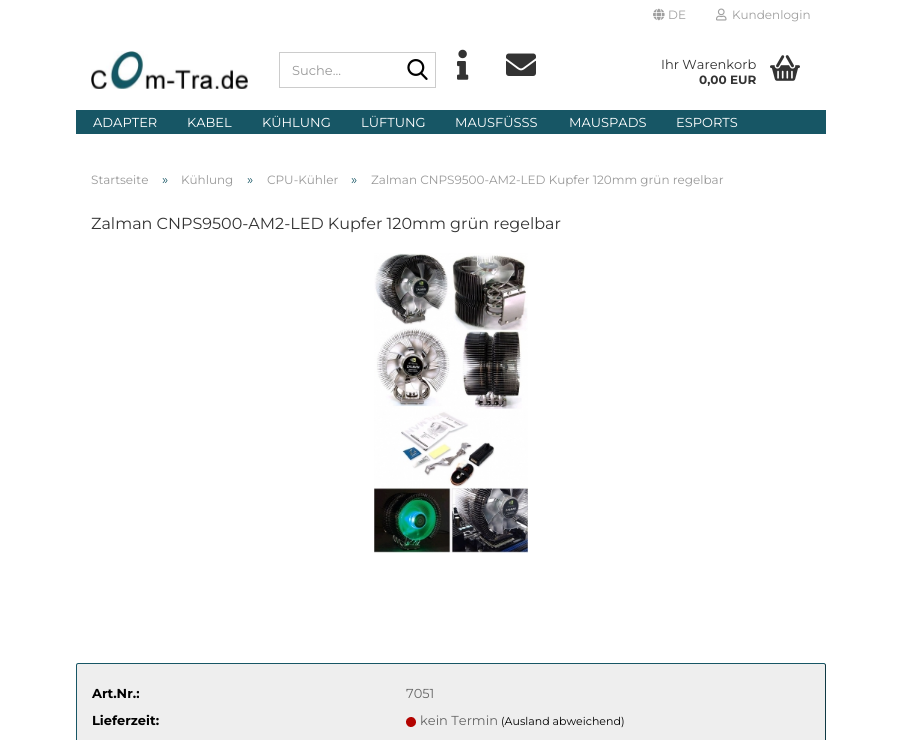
import math
import cairo

surface = cairo.ImageSurface(cairo.Format.RGB24, 902, 740)
ctx = cairo.Context(surface)
options = cairo.FontOptions()
options.set_hint_metrics(cairo.HintMetrics.OFF)
options.set_hint_style(cairo.HintStyle.NONE)
ctx.set_font_options(options)
ctx.set_miter_limit(4)


def ink(r, g, b):
    ctx.set_source_rgb(r / 255, g / 255, b / 255)


def write(x, y, s, family, size, color, bold=False, italic=False):
    ctx.select_font_face(family, cairo.FontSlant.ITALIC if italic else cairo.FontSlant.NORMAL, cairo.FontWeight.BOLD if bold else cairo.FontWeight.NORMAL)
    ctx.set_font_size(size)
    ink(*color)
    ctx.move_to(x, y)
    ctx.show_text(s)


def block(x, y, w, h, *color):
    ink(*color)
    ctx.rectangle(x, y, w, h)
    ctx.fill()


def round_path(x, y, w, h, r):
    ctx.new_sub_path()
    for i, (u, v) in enumerate([(x + w - r, y + h - r), (x + r, y + h - r), (x + r, y + r), (x + w - r, y + r)]):
        ctx.arc(u, v, r, i * math.pi / 2, (i + 1) * math.pi / 2)
    ctx.close_path()


def paste(path, x, y, w, h):
    ctx.save()
    ctx.set_source_surface(cairo.ImageSurface.create_from_png(path), x, y)
    ctx.rectangle(x, y, w, h)
    ctx.fill()
    ctx.restore()


s1 = dict(family="Montserrat Thin", size=12, color=(159, 159, 159))
s2 = dict(family="Montserrat Thin", size=13, color=(153, 153, 153))
s3 = dict(family="Montserrat Thin", size=13, color=(51, 51, 51))
s4 = dict(family="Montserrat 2 Thin", size=12, color=(51, 51, 51))
s5 = dict(family="Montserrat Thin", size=13, color=(255, 255, 255))
s6 = dict(family="Montserrat Thin", size=12, color=(153, 153, 153))
s7 = dict(family="Montserrat Thin", size=13, color=(23, 86, 101))
s8 = dict(family="Montserrat Thin", size=16, color=(51, 51, 51))
s9 = dict(family="Montserrat 2 Thin", size=13, color=(0, 0, 0))
s10 = dict(family="Montserrat Thin", size=13, color=(102, 102, 102))
s11 = dict(family="Montserrat Thin", size=11, color=(0, 0, 0))

ink(255, 255, 255)
ctx.paint()
paste("pic1.png", 653, 8, 12, 13)
write(668, 19, "DE", **s1)
paste("pic2.png", 716, 8, 11, 13)
write(732, 19, "Kundenlogin", **s1)
paste("pic3.png", 91, 51, 157, 38)
ctx.rectangle(279.5, 52.5, 156, 35)
ink(204, 204, 204)
ctx.set_line_width(1)
ctx.stroke()
write(292, 75, "Suche...", **s2)
paste("pic4.png", 407, 59, 21, 21)
paste("pic5.png", 457, 49, 12, 31)
paste("pic6.png", 506, 53, 30, 23)
write(661, 69, "Ihr Warenkorb", **s3)
write(699, 84, "0,00 EUR", **s4)
paste("pic7.png", 770, 55, 30, 26)
block(76, 110, 750, 24, 23, 86, 101)
write(93, 127, "ADAPTER", **s5)
write(187, 127, "KABEL", **s5)
write(262, 127, "KÜHLUNG", **s5)
write(361, 127, "LÜFTUNG", **s5)
write(455, 127, "MAUSFÜSSS", **s5)
write(569, 127, "MAUSPADS", **s5)
write(676, 127, "ESPORTS", **s5)
write(91, 184, "Startseite", **s6)
write(162, 184, "»", **s7)
write(181, 184, "Kühlung", **s6)
write(247, 184, "»", **s7)
write(267, 184, "CPU-Kühler", **s6)
write(351, 184, "»", **s7)
write(371, 184, "Zalman CNPS9500-AM2-LED Kupfer 120mm grün regelbar", **s6)
write(91, 229, "Zalman CNPS9500-AM2-LED Kupfer 120mm grün regelbar", **s8)
paste("pic8.png", 374, 253, 154, 300)
ink(238, 238, 238)
round_path(76, 663, 750, 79, 2)
ctx.fill()
ctx.new_path()
ctx.move_to(825, 664)
ctx.line_to(825.5, 665)
ctx.line_to(825.5, 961)
ctx.line_to(825, 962)
ctx.line_to(824, 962.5)
ctx.line_to(78, 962.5)
ctx.line_to(77, 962)
ink(15, 57, 67)
ctx.stroke()
ctx.new_path()
ctx.move_to(77, 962)
ctx.line_to(76.5, 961)
ctx.line_to(76.5, 665)
ctx.line_to(77, 664)
ctx.line_to(78, 663.5)
ctx.line_to(824, 663.5)
ctx.line_to(825, 664)
ink(23, 86, 101)
ctx.stroke()
write(92, 698, "Art.Nr.:", **s9)
write(406, 698, "7051", **s10)
write(92, 725, "Lieferzeit:", **s9)
paste("pic9.png", 406, 717, 10, 10)
write(420, 725, "kein Termin", **s10)
write(501, 725, "(Ausland abweichend)", **s11)
surface.write_to_png("screenshot.png")
